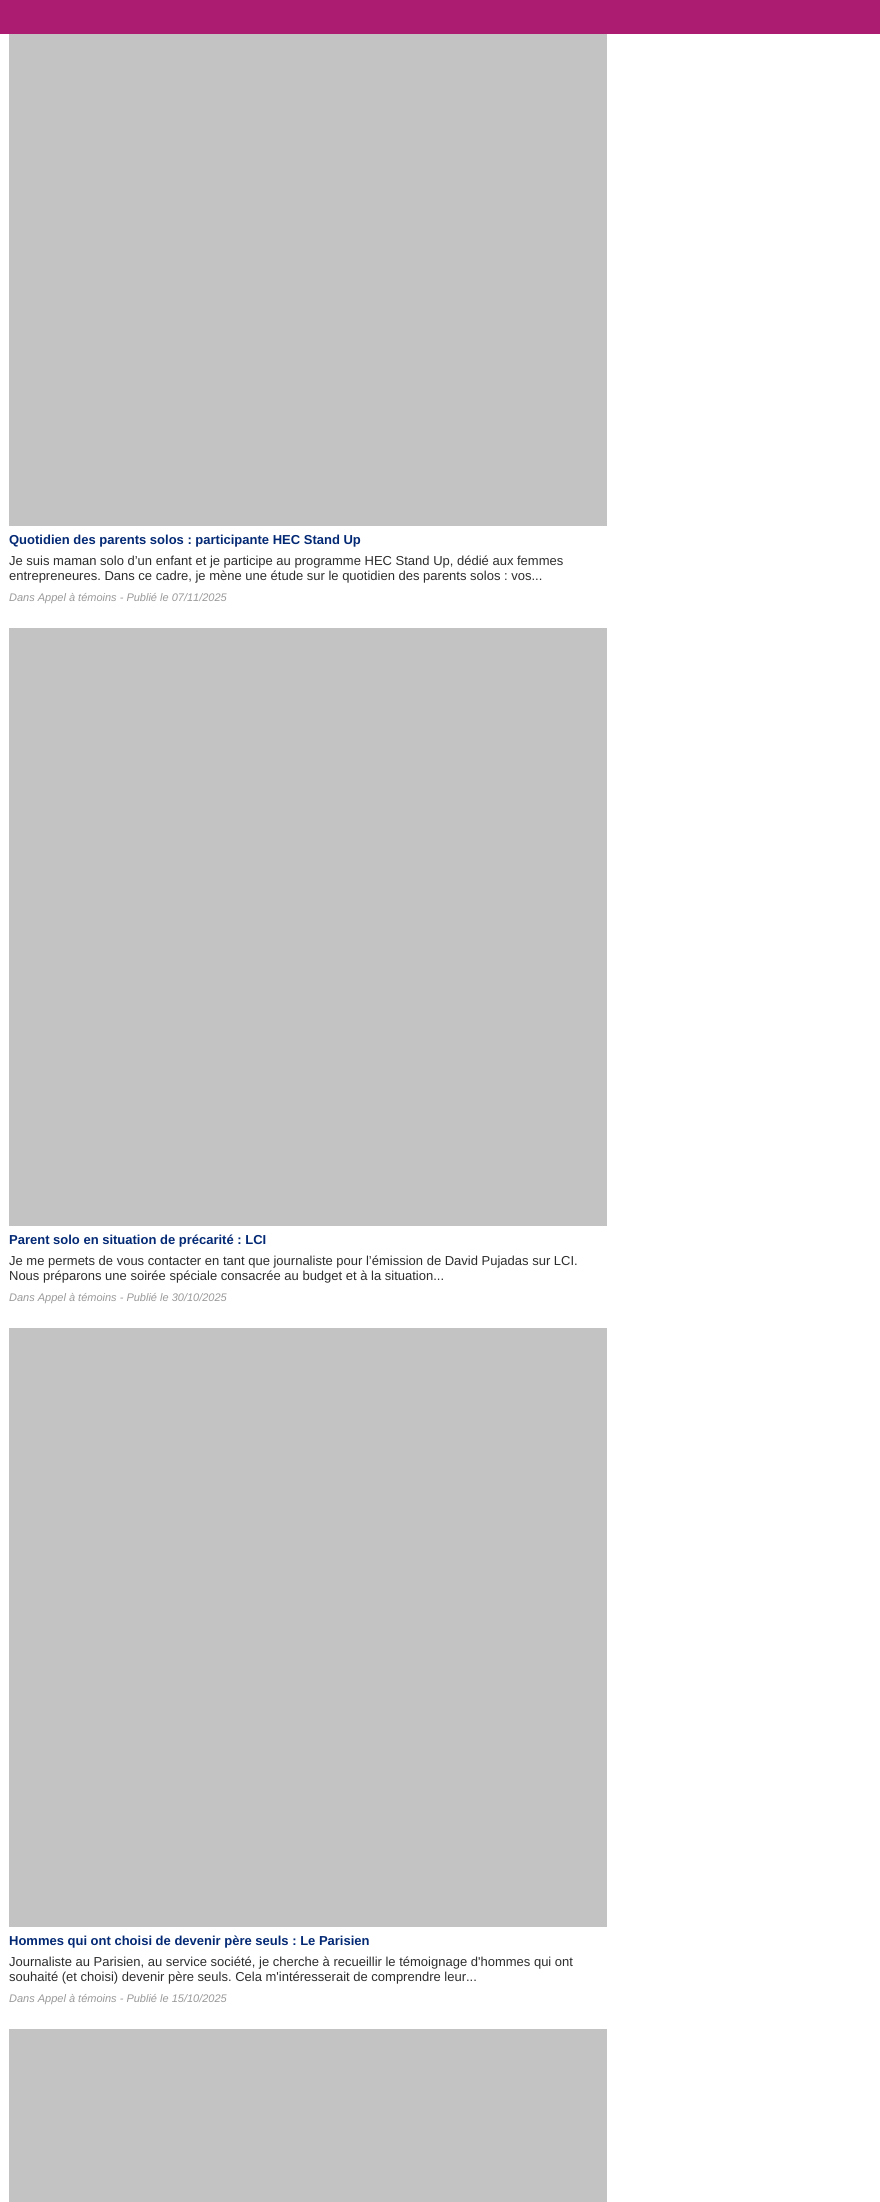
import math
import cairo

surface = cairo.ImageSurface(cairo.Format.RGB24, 880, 2202)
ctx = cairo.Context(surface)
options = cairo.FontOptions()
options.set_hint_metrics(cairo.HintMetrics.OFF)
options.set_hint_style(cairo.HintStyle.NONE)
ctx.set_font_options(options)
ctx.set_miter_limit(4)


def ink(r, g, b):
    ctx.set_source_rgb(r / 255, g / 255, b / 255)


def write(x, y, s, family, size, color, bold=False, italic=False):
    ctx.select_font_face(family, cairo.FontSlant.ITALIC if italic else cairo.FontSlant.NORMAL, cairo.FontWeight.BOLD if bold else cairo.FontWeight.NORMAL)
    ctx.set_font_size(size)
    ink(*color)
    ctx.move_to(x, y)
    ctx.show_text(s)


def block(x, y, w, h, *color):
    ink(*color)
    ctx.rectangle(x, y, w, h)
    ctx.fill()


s1 = dict(family="Liberation Sans", size=13, color=(3, 41, 117), bold=True)
s2 = dict(family="Liberation Sans", size=13, color=(45, 45, 45))
s3 = dict(family="Liberation Sans", size=11, color=(153, 153, 153), italic=True)

ink(255, 255, 255)
ctx.paint()
block(0, 0, 880, 34, 172, 29, 114)
block(9, 34, 598, 492, 195, 195, 195)
write(9, 544, "Quotidien des parents solos : participante HEC Stand Up", **s1)
write(9, 565, "Je suis maman solo d’un enfant et je participe au programme HEC Stand Up, dédié aux femmes", **s2)
write(9, 580, "entrepreneures. Dans ce cadre, je mène une étude sur le quotidien des parents solos : vos...", **s2)
write(9, 601, "Dans Appel à témoins - Publié le 07/11/2025", **s3)
block(9, 628, 598, 598, 195, 195, 195)
write(9, 1244, "Parent solo en situation de précarité : LCI", **s1)
write(9, 1265, "Je me permets de vous contacter en tant que journaliste pour l’émission de David Pujadas sur LCI.", **s2)
write(9, 1280, "Nous préparons une soirée spéciale consacrée au budget et à la situation...", **s2)
write(9, 1301, "Dans Appel à témoins - Publié le 30/10/2025", **s3)
block(9, 1328, 598, 599, 195, 195, 195)
write(9, 1945, "Hommes qui ont choisi de devenir père seuls : Le Parisien", **s1)
write(9, 1966, "Journaliste au Parisien, au service société, je cherche à recueillir le témoignage d'hommes qui ont", **s2)
write(9, 1981, "souhaité (et choisi) devenir père seuls. Cela m'intéresserait de comprendre leur...", **s2)
write(9, 2002, "Dans Appel à témoins - Publié le 15/10/2025", **s3)
block(9, 2029, 598, 173, 195, 195, 195)
surface.write_to_png("screenshot.png")
